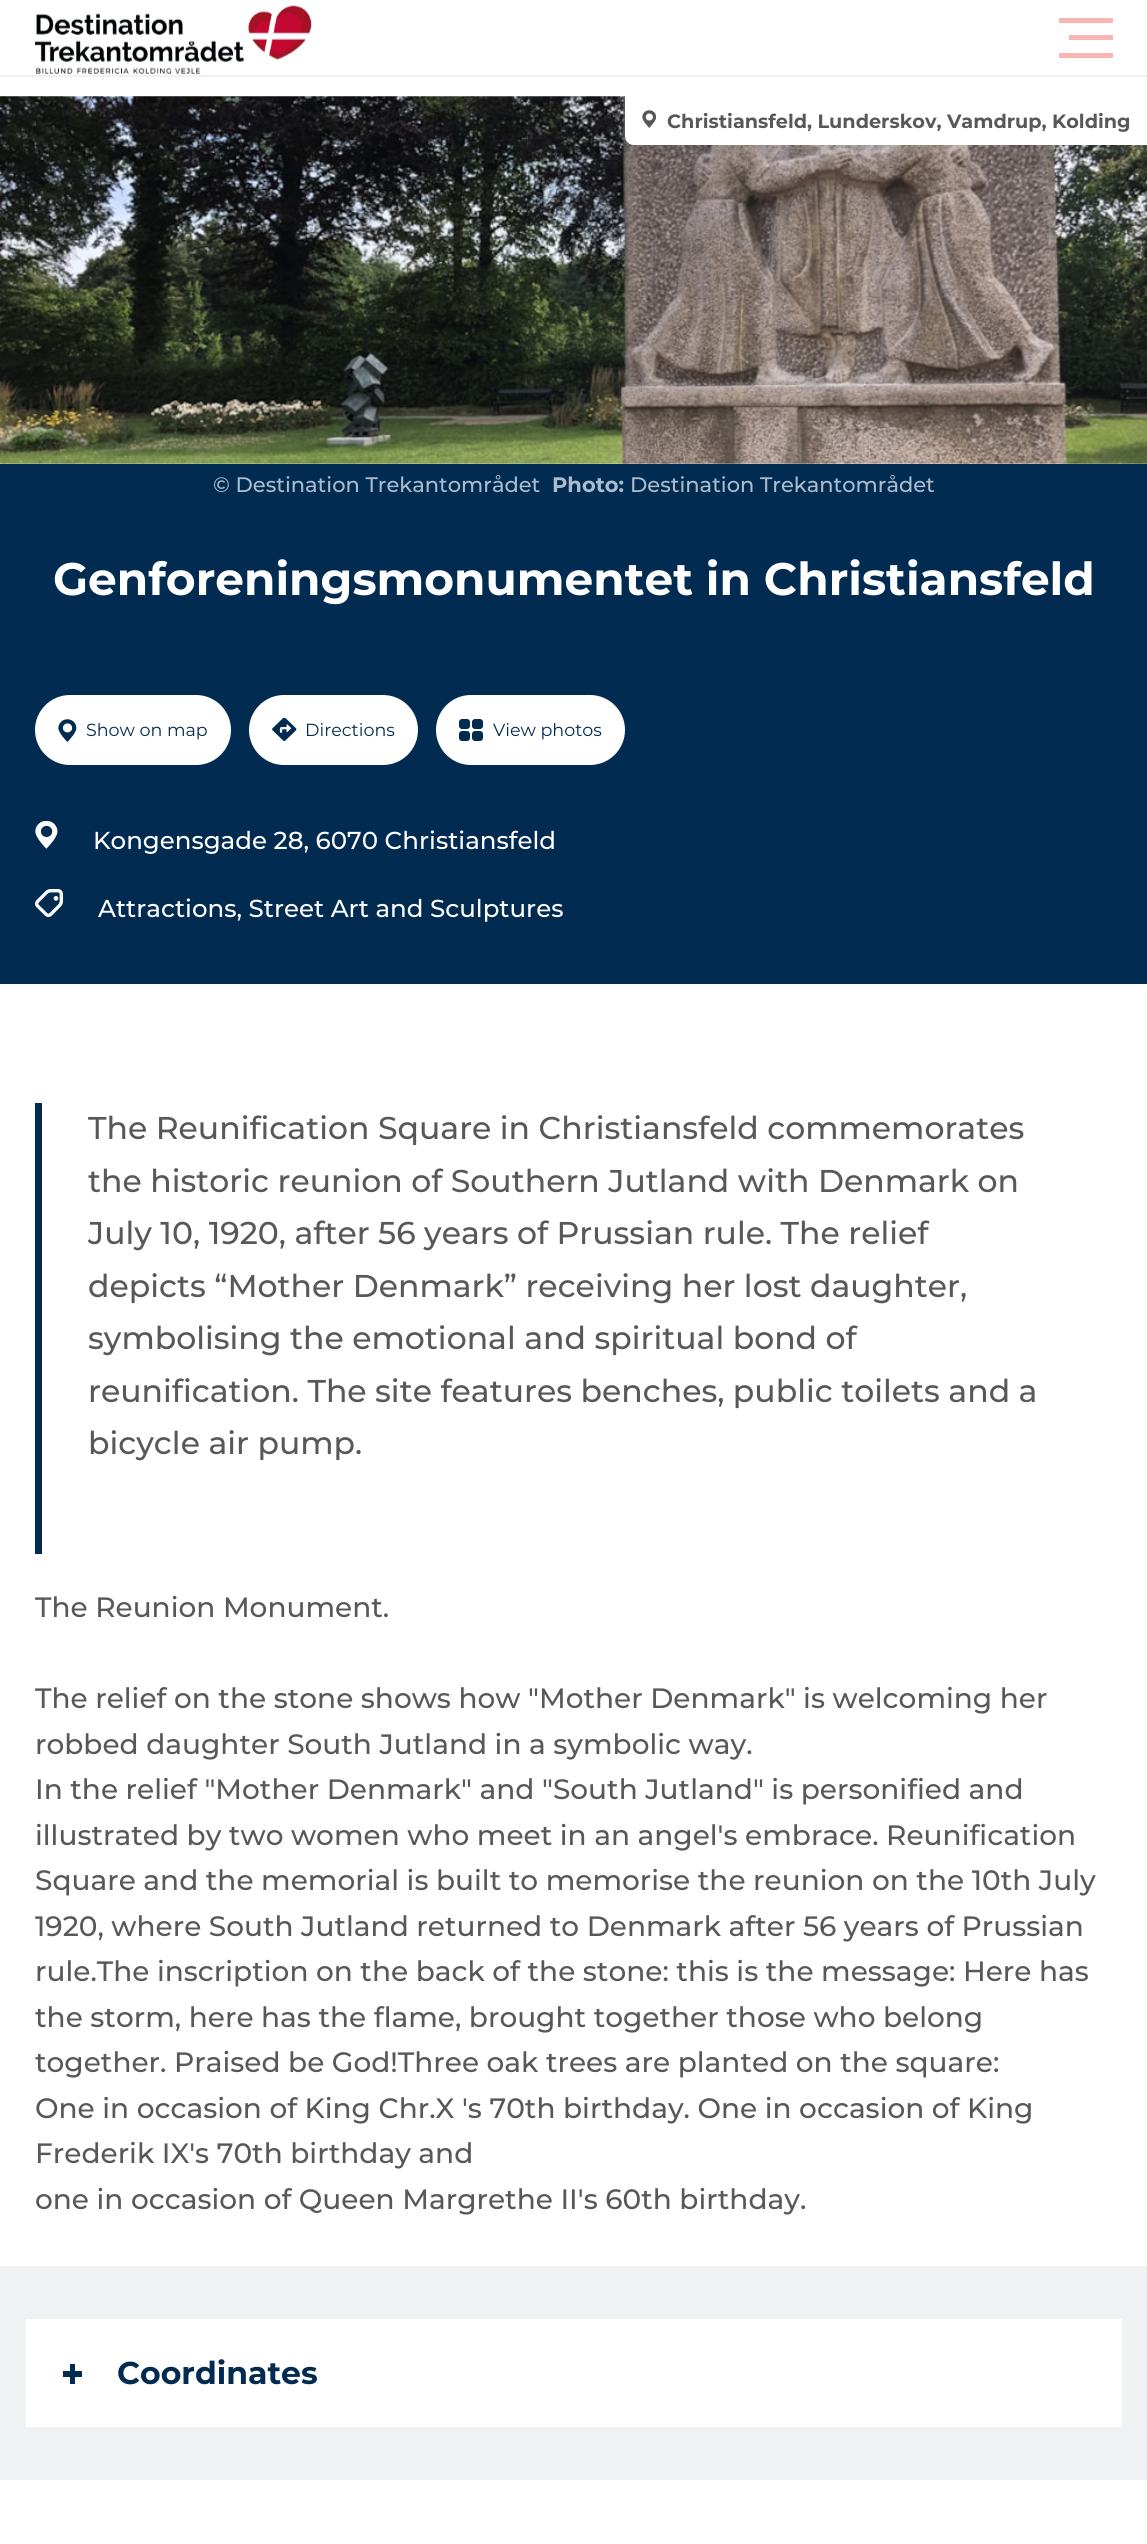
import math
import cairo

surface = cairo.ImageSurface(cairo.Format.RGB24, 1147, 2544)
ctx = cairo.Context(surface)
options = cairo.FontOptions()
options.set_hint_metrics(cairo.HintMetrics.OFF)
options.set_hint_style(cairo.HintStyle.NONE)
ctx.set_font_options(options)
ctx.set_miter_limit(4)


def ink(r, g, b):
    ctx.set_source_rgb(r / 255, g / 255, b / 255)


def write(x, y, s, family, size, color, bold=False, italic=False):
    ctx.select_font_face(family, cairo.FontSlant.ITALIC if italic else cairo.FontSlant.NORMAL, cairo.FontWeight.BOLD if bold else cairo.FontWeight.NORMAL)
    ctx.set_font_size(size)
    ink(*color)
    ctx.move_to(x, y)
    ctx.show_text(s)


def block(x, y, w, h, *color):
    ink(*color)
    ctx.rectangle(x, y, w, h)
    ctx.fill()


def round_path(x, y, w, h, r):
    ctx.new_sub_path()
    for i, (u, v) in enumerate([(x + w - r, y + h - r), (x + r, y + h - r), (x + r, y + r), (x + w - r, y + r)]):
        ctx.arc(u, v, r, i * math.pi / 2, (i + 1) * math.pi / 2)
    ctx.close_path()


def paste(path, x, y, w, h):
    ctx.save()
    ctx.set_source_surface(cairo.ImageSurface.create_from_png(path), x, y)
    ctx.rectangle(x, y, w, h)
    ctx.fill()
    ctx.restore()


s1 = dict(family="Montserrat", size=19.25, color=(88, 88, 88), bold=True)
s2 = dict(family="Montserrat Medium", size=21, color=(170, 188, 205))
s3 = dict(family="Montserrat", size=21, color=(170, 188, 205), bold=True)
s4 = dict(family="Montserrat", size=45.5, color=(255, 255, 255), bold=True)
s5 = dict(family="Montserrat", size=17.5, color=(2, 43, 82))
s6 = dict(family="Montserrat Medium", size=24.5, color=(255, 255, 255))
s7 = dict(family="Montserrat Medium", size=31.5, color=(88, 88, 88))
s8 = dict(family="Montserrat Medium", size=28, color=(88, 88, 88))
s9 = dict(family="Montserrat", size=31.5, color=(2, 43, 82), bold=True)

ink(255, 255, 255)
ctx.paint()
block(0, 75, 1147, 2, 240, 241, 243)
paste("pic1.png", 35, 5, 277, 69)
block(1059, 18, 54, 5, 249, 181, 178)
block(1069, 35, 44, 5, 249, 181, 178)
block(1059, 53, 54, 5, 249, 181, 178)
paste("pic2.png", 0, 96, 1147, 368)
ink(255, 255, 255)
ctx.new_path()
ctx.move_to(625, 96)
ctx.line_to(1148, 96)
ctx.line_to(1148, 145)
ctx.line_to(634, 145)
ctx.curve_to(629, 145, 625, 141, 625, 136)
ctx.close_path()
ctx.fill()
paste("pic3.png", 642, 110, 14, 18)
write(667, 128, "Christiansfeld, Lunderskov, Vamdrup, Kolding", **s1)
block(0, 464, 1147, 520, 2, 43, 82)
write(213, 492, "© Destination Trekantområdet", **s2)
write(552, 492, "Photo:", **s3)
write(630, 492, "Destination Trekantområdet", **s2)
write(53, 595, "Genforeningsmonumentet in Christiansfeld", **s4)
round_path(35, 695, 196, 70, 35)
ctx.fill()
paste("pic4.png", 58, 719, 19, 23)
write(86, 736, "Show on map", **s5)
ink(255, 255, 255)
round_path(249, 695, 169, 70, 35)
ctx.fill()
paste("pic5.png", 272, 718, 25, 23)
write(305, 736, "Directions", **s5)
ink(255, 255, 255)
round_path(436, 695, 189, 70, 35)
ctx.fill()
ink(2, 43, 82)
round_path(472, 719, 11, 10, 3)
ctx.fill()
round_path(472, 731, 11, 10, 3)
ctx.fill()
round_path(459, 719, 11, 10, 3)
ctx.fill()
round_path(459, 731, 11, 10, 3)
ctx.fill()
write(493, 736, "View photos", **s5)
paste("pic6.png", 35, 821, 23, 28)
write(93, 849, "Kongensgade 28, 6070 Christiansfeld", **s6)
paste("pic7.png", 35, 889, 28, 28)
write(98, 917, "Attractions, Street Art and Sculptures", **s6)
block(35, 1103, 7, 451, 2, 43, 82)
write(88, 1139, "The Reunification Square in Christiansfeld commemorates", **s7)
write(88, 1192, "the historic reunion of Southern Jutland with Denmark on", **s7)
write(88, 1244, "July 10, 1920, after 56 years of Prussian rule. The relief", **s7)
write(88, 1297, "depicts “Mother Denmark” receiving her lost daughter,", **s7)
write(88, 1349, "symbolising the emotional and spiritual bond of", **s7)
write(88, 1402, "reunification. The site features benches, public toilets and a", **s7)
write(88, 1454, "bicycle air pump.", **s7)
write(35, 1617, "The Reunion Monument.", **s8)
write(35, 1708, "The relief on the stone shows how \"Mother Denmark\" is welcoming her", **s8)
write(35, 1754, "robbed daughter South Jutland in a symbolic way.", **s8)
write(35, 1799, "In the relief \"Mother Denmark\" and \"South Jutland\" is personified and", **s8)
write(35, 1845, "illustrated by two women who meet in an angel's embrace. Reunification", **s8)
write(35, 1890, "Square and the memorial is built to memorise the reunion on the 10th July", **s8)
write(35, 1936, "1920, where South Jutland returned to Denmark after 56 years of Prussian", **s8)
write(35, 1981, "rule.The inscription on the back of the stone: this is the message: Here has", **s8)
write(35, 2027, "the storm, here has the flame, brought together those who belong", **s8)
write(35, 2072, "together. Praised be God!Three oak trees are planted on the square:", **s8)
write(35, 2118, "One in occasion of King Chr.X 's 70th birthday. One in occasion of King", **s8)
write(35, 2163, "Frederik IX's 70th birthday and", **s8)
write(35, 2209, "one in occasion of Queen Margrethe II's 60th birthday.", **s8)
block(0, 2266, 1147, 214, 239, 241, 243)
block(26, 2319, 1096, 108, 255, 255, 255)
block(63, 2371, 19, 6, 2, 43, 82)
block(70, 2364, 5, 20, 2, 43, 82)
write(117, 2384, "Coordinates", **s9)
surface.write_to_png("screenshot.png")
